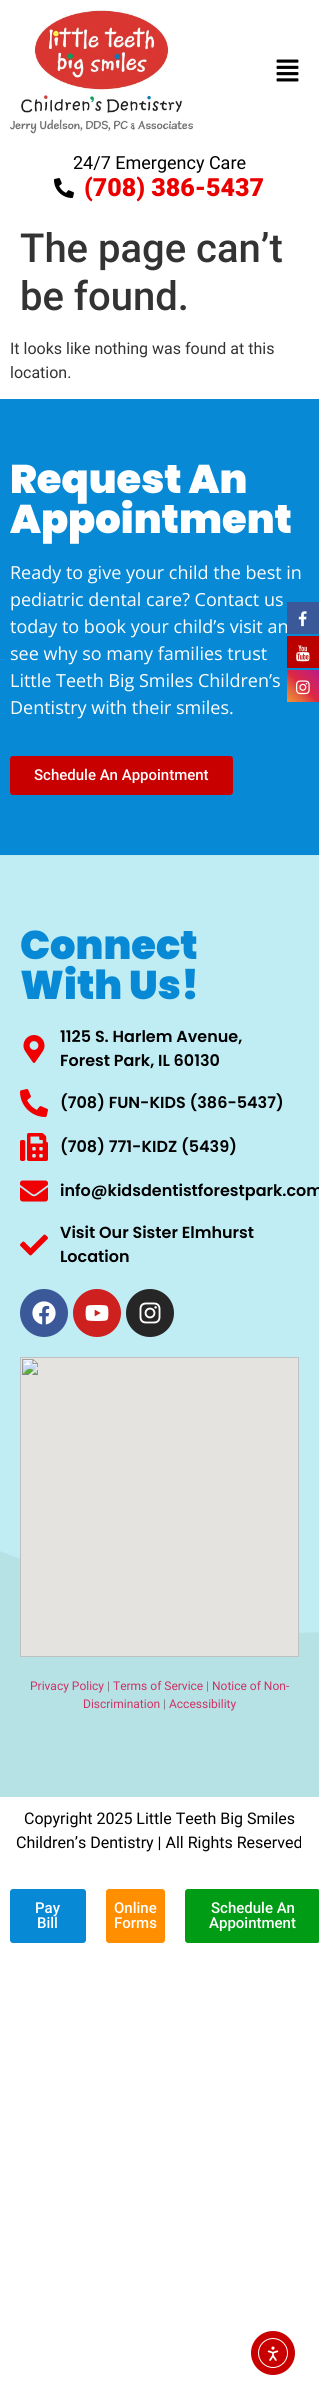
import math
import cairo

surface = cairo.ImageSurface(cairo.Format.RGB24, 319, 2399)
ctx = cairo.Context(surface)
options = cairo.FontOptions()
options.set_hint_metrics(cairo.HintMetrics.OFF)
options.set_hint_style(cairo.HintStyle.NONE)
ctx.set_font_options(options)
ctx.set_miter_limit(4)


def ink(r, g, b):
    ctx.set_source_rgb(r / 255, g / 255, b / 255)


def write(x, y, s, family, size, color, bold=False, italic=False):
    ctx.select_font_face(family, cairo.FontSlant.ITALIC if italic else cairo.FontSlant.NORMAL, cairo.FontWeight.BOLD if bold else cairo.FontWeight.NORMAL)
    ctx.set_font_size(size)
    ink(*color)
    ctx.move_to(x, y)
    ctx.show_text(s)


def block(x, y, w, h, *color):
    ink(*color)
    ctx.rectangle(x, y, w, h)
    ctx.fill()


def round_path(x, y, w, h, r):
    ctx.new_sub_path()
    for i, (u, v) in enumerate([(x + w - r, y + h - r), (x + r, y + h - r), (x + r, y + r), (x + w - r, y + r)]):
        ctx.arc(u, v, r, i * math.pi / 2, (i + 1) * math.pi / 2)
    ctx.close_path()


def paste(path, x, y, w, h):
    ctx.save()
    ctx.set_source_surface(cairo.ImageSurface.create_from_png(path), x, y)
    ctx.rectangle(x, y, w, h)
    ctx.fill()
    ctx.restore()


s1 = dict(family="Roboto", size=18, color=(0, 0, 0))
s2 = dict(family="Roboto Black", size=25, color=(235, 0, 0))
s3 = dict(family="Roboto Medium", size=40, color=(51, 51, 51))
s4 = dict(family="Roboto", size=16, color=(51, 51, 51))
s5 = dict(family="Poppins Black", size=40, color=(255, 255, 255))
s6 = dict(family="Open Sans", size=18, color=(255, 255, 255))
s7 = dict(family="Roboto Medium", size=15, color=(255, 255, 255))
s8 = dict(family="Poppins Black", size=40, color=(7, 137, 213))
s9 = dict(family="Poppins SemiBold", size=16, color=(0, 0, 0))
s10 = dict(family="Roboto", size=12, color=(204, 51, 102))
s11 = dict(family="Roboto", size=12, color=(122, 122, 122))
s12 = dict(family="Roboto", size=16, color=(0, 0, 0))

ink(255, 255, 255)
ctx.paint()
paste("pic1.png", 10, 10, 183, 124)
paste("pic2.png", 276, 59, 23, 23)
write(73, 169, "24/7 Emergency Care", **s1)
paste("pic3.png", 54, 178, 20, 20)
write(84, 196, "(708) 386-5437", **s2)
write(20, 262, "The page can’t", **s3)
write(20, 310, "be found.", **s3)
write(10, 354, "It looks like nothing was found at this", **s4)
write(10, 378, "location.", **s4)
block(0, 399, 319, 456, 7, 137, 213)
write(10, 493, "Request An", **s5)
write(10, 533, "Appointment", **s5)
write(10, 579, "Ready to give your child the best in", **s6)
write(10, 606, "pediatric dental care? Contact us", **s6)
write(10, 633, "today to book your child’s visit an", **s6)
write(10, 660, "see why so many families trust", **s6)
write(10, 687, "Little Teeth Big Smiles Children’s", **s6)
write(10, 714, "Dentistry with their smiles.", **s6)
ink(201, 0, 0)
round_path(10, 756, 223, 39, 3)
ctx.fill()
write(34, 780, "Schedule An Appointment", **s7)
block(0, 855, 319, 942, 192, 236, 243)
paste("pic4.png", 0, 855, 319, 942)
write(20, 959, "Connect", **s8)
write(20, 999, "With Us!", **s8)
paste("pic5.png", 23, 1035, 22, 28)
write(60, 1042, "1125 S. Harlem Avenue,", **s9)
write(60, 1066, "Forest Park, IL 60130", **s9)
paste("pic6.png", 20, 1089, 28, 28)
write(60, 1108, "(708) FUN-KIDS (386-5437)", **s9)
paste("pic7.png", 20, 1133, 28, 28)
write(60, 1152, "(708) 771-KIDZ (5439)", **s9)
paste("pic8.png", 20, 1180, 28, 22)
write(60, 1196, "info@kidsdentistforestpark.com", **s9)
paste("pic9.png", 20, 1234, 28, 22)
write(60, 1238, "Visit Our Sister Elmhurst", **s9)
write(60, 1262, "Location", **s9)
ink(59, 89, 152)
ctx.new_path()
ctx.arc(44, 1313, 24, 0, 2 * math.pi)
ctx.fill()
paste("pic10.png", 32, 1301, 24, 24)
ink(205, 32, 31)
ctx.arc(97, 1313, 24, 0, 2 * math.pi)
ctx.fill()
paste("pic11.png", 85, 1305, 24, 16)
ink(38, 38, 38)
ctx.arc(150, 1313, 24, 0, 2 * math.pi)
ctx.fill()
paste("pic12.png", 139, 1302, 22, 22)
paste("pic13.png", 20, 1357, 279, 300)
write(30, 1690, "Privacy Policy", **s10)
write(107, 1690, "|", **s11)
write(113, 1690, "Terms of Service", **s10)
write(206, 1690, "|", **s11)
write(212, 1690, "Notice of Non-", **s10)
write(83, 1708, "Discrimination", **s10)
write(163, 1708, "|", **s11)
write(169, 1708, "Accessibility", **s10)
write(24, 1824, "Copyright 2025 Little Teeth Big Smiles", **s12)
write(16, 1848, "Children’s Dentistry | All Rights Reserved", **s12)
ink(7, 137, 213)
round_path(10, 1889, 76, 54, 3)
ctx.fill()
write(35, 1913, "Pay", **s7)
write(37, 1928, "Bill", **s7)
ink(255, 143, 0)
round_path(106, 1889, 59, 54, 3)
ctx.fill()
write(114, 1913, "Online", **s7)
write(114, 1928, "Forms", **s7)
ink(0, 156, 22)
round_path(185, 1889, 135, 54, 3)
ctx.fill()
write(211, 1913, "Schedule An", **s7)
write(209, 1928, "Appointment", **s7)
block(287, 602, 32, 32, 59, 89, 152)
paste("pic14.png", 298, 611, 9, 16)
block(287, 636, 32, 32, 187, 0, 0)
paste("pic15.png", 296, 645, 14, 17)
gradient = cairo.LinearGradient(287, 702, 319, 670)
gradient.add_color_stop_rgba(0, 0.941, 0.58, 0.2, 1)
gradient.add_color_stop_rgba(0.25, 0.902, 0.408, 0.235, 1)
gradient.add_color_stop_rgba(0.5, 0.863, 0.153, 0.263, 1)
gradient.add_color_stop_rgba(0.75, 0.8, 0.137, 0.4, 1)
gradient.add_color_stop_rgba(1, 0.737, 0.094, 0.533, 1)
ctx.set_source(gradient)
ctx.rectangle(287, 670, 32, 32)
ctx.fill()
paste("pic16.png", 296, 680, 14, 15)
ink(201, 0, 0)
ctx.arc(273, 2353, 22, 0, 2 * math.pi)
ctx.fill()
ctx.arc(273, 2353, 14.5, 0, 2 * math.pi)
ink(255, 255, 255)
ctx.set_line_width(1)
ctx.stroke()
paste("pic17.png", 267, 2346, 12, 15)
surface.write_to_png("screenshot.png")
